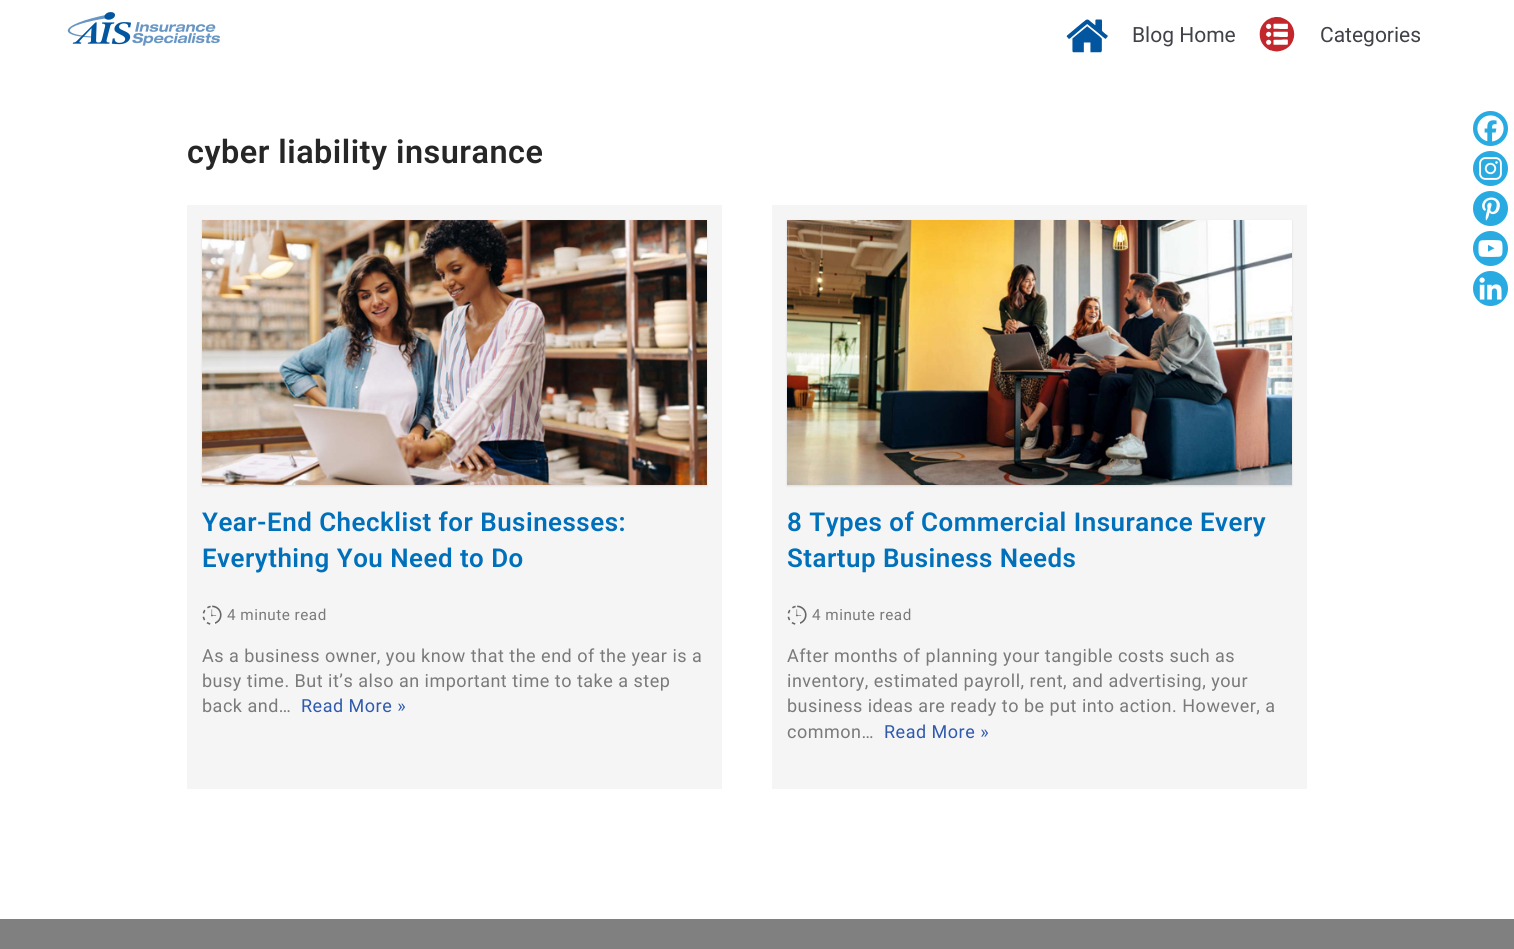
import math
import cairo

surface = cairo.ImageSurface(cairo.Format.RGB24, 1514, 949)
ctx = cairo.Context(surface)
options = cairo.FontOptions()
options.set_hint_metrics(cairo.HintMetrics.OFF)
options.set_hint_style(cairo.HintStyle.NONE)
ctx.set_font_options(options)
ctx.set_miter_limit(4)


def ink(r, g, b):
    ctx.set_source_rgb(r / 255, g / 255, b / 255)


def write(x, y, s, family, size, color, bold=False, italic=False):
    ctx.select_font_face(family, cairo.FontSlant.ITALIC if italic else cairo.FontSlant.NORMAL, cairo.FontWeight.BOLD if bold else cairo.FontWeight.NORMAL)
    ctx.set_font_size(size)
    ink(*color)
    ctx.move_to(x, y)
    ctx.show_text(s)


def write_spaced(x, y, s, letter, word):
    ctx.move_to(x, y)
    for ch in s:
        ctx.show_text(ch)
        ctx.rel_move_to(letter + word * (ch == ' '), 0)


def block(x, y, w, h, *color):
    ink(*color)
    ctx.rectangle(x, y, w, h)
    ctx.fill()


def round_path(x, y, w, h, r):
    ctx.new_sub_path()
    for i, (u, v) in enumerate([(x + w - r, y + h - r), (x + r, y + h - r), (x + r, y + r), (x + w - r, y + r)]):
        ctx.arc(u, v, r, i * math.pi / 2, (i + 1) * math.pi / 2)
    ctx.close_path()


def blur_box(x, y, w, h, r, blur, alpha):
    ctx.push_group_with_content(cairo.Content.ALPHA)
    ctx.set_operator(cairo.Operator.SOURCE)
    for i in range(15, -16, -2):
        e = blur * i / 6
        if min(w, h) + 2 * e > 0:
            ctx.set_source_rgba(0, 0, 0, alpha * math.erfc((i - 1) / 8.5) / 2)
            round_path(x - e, y - e, w + 2 * e, h + 2 * e, max(0, min(r + e + blur * .6, min(w, h) / 2 + e)))
            ctx.fill()
    ctx.mask(ctx.pop_group())


def paste(path, x, y, w, h):
    ctx.save()
    ctx.set_source_surface(cairo.ImageSurface.create_from_png(path), x, y)
    ctx.rectangle(x, y, w, h)
    ctx.fill()
    ctx.restore()


s1 = dict(family="Roboto", size=21, color=(64, 66, 72))

ink(255, 255, 255)
ctx.paint()
paste("pic1.png", 67, 12, 153, 34)
paste("pic2.png", 1066, 19, 42, 34)
write(1132, 42, "Blog Home", **s1)
paste("pic3.png", 1259, 17, 36, 35)
write(1320, 42, "Categories", **s1)
ctx.select_font_face("Roboto SemiBold")
ctx.set_font_size(32.4)
ink(39, 38, 38)
write_spaced(187, 163, "cyber liability insurance", 0.5, 0)
block(187, 205, 535, 584, 245, 245, 245)
ink(0, 0, 0)
blur_box(202, 221, 505, 265, 0, 1, 0.1)
paste("pic4.png", 202, 220, 505, 265)
ctx.set_font_size(25.9)
ink(0, 112, 187)
write_spaced(202, 531, "Year-End Checklist for Businesses:", 0.5, 0)
write_spaced(202, 567, "Everything You Need to Do", 0.5, 0)
paste("pic5.png", 202, 605, 20, 20)
ctx.select_font_face("Roboto")
ctx.set_font_size(15.25)
ink(122, 122, 122)
write_spaced(227, 620, "4 minute read", 0.5, 0)
ctx.set_font_size(18)
write_spaced(202, 662, "As a business owner, you know that the end of the year is a", 0.5, 0)
write_spaced(202, 687, "busy time. But it’s also an important time to take a step", 0.5, 0)
write_spaced(202, 712, "back and…", 0.5, 0)
ink(47, 90, 174)
write_spaced(301, 712, "Read More »", 0.5, 0)
block(772, 205, 535, 584, 245, 245, 245)
ink(0, 0, 0)
blur_box(787, 221, 505, 265, 0, 1, 0.1)
paste("pic6.png", 787, 220, 505, 265)
ctx.select_font_face("Roboto SemiBold")
ctx.set_font_size(25.9)
ink(0, 112, 187)
write_spaced(787, 531, "8 Types of Commercial Insurance Every", 0.5, 0)
write_spaced(787, 567, "Startup Business Needs", 0.5, 0)
ink(41, 171, 226)
ctx.new_path()
ctx.arc(1490.5, 128.5, 17.5, 0, 2 * math.pi)
ctx.fill()
paste("pic7.png", 1477, 115, 27, 27)
ctx.arc(1490.5, 168.5, 17.5, 0, 2 * math.pi)
ctx.fill()
paste("pic8.png", 1479, 157, 23, 23)
ctx.arc(1490.5, 208.5, 17.5, 0, 2 * math.pi)
ctx.fill()
paste("pic9.png", 1482, 197, 18, 24)
ctx.arc(1490.5, 248.5, 17.5, 0, 2 * math.pi)
ctx.fill()
paste("pic10.png", 1478, 240, 25, 17)
ctx.arc(1490.5, 288.5, 17.5, 0, 2 * math.pi)
ctx.fill()
paste("pic11.png", 1479, 277, 23, 23)
paste("pic5.png", 787, 605, 20, 20)
ctx.select_font_face("Roboto")
ctx.set_font_size(15.25)
ink(122, 122, 122)
write_spaced(812, 620, "4 minute read", 0.5, 0)
ctx.set_font_size(18)
write_spaced(787, 662, "After months of planning your tangible costs such as", 0.5, 0)
write_spaced(787, 687, "inventory, estimated payroll, rent, and advertising, your", 0.5, 0)
write_spaced(787, 712, "business ideas are ready to be put into action. However, a", 0.5, 0)
write_spaced(787, 738, "common…", 0.5, 0)
ink(47, 90, 174)
write_spaced(884, 738, "Read More »", 0.5, 0)
block(0, 919, 1514, 30, 128, 128, 128)
surface.write_to_png("screenshot.png")
